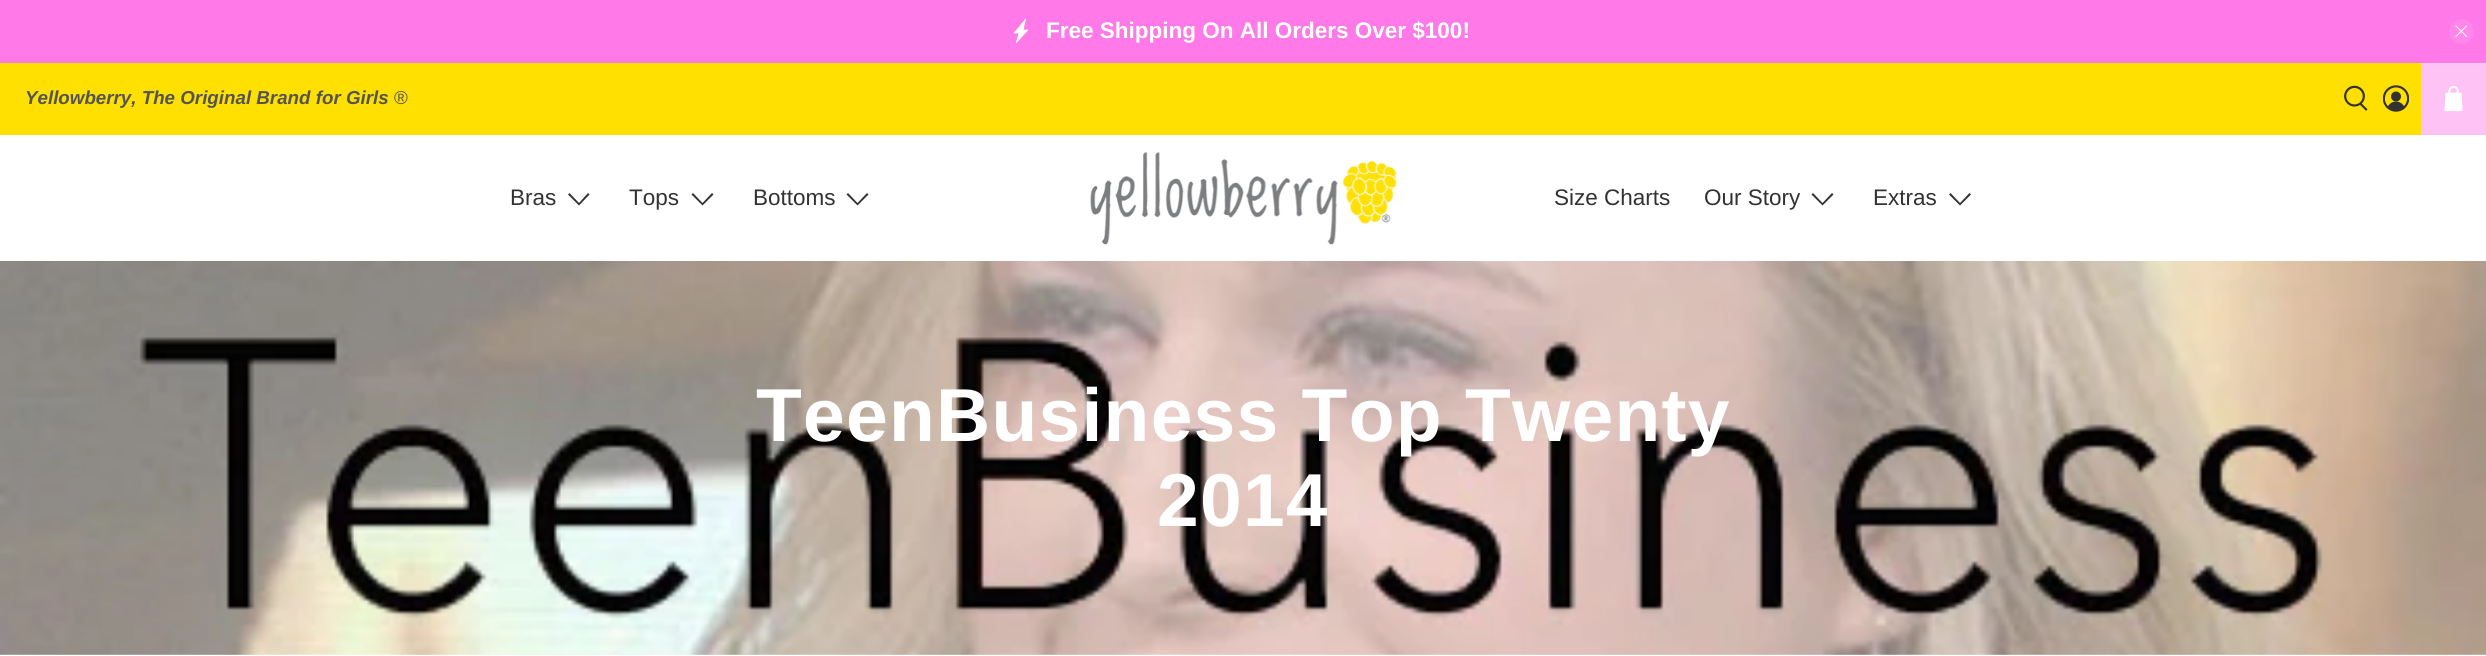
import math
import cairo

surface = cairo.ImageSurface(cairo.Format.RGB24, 2486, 656)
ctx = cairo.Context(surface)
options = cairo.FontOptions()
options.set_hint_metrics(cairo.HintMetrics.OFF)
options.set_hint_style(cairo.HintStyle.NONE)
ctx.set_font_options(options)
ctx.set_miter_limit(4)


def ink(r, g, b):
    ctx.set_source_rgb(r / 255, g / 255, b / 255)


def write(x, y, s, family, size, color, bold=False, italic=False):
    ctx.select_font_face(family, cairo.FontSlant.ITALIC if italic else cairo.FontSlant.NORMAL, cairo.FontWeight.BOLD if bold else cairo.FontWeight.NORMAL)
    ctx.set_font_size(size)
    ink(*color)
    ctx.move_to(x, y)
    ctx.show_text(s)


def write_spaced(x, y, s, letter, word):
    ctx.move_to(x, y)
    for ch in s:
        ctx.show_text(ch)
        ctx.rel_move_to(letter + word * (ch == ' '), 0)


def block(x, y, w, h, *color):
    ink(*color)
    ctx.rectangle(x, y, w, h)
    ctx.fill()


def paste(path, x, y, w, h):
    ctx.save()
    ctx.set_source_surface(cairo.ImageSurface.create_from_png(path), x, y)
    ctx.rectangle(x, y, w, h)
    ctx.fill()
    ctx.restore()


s1 = dict(family="Liberation Sans", size=22.5, color=(255, 255, 255), bold=True)
s2 = dict(family="Liberation Sans", size=18.75, color=(84, 84, 84), bold=True, italic=True)
s3 = dict(family="Liberation Sans", size=18.75, color=(84, 84, 84))
s4 = dict(family="Liberation Sans", size=22.5, color=(51, 50, 50))

ink(255, 255, 255)
ctx.paint()
block(0, 0, 2486, 63, 255, 121, 232)
paste("pic1.png", 1013, 18, 16, 26)
write(1046, 38, "Free Shipping On All Orders Over $100!", **s1)
ink(255, 134, 234)
ctx.new_path()
ctx.arc(2461.5, 31.5, 12.5, 0, 2 * math.pi)
ctx.fill()
paste("pic2.png", 2455, 25, 13, 13)
block(0, 63, 2421, 72, 255, 224, 0)
write(25, 104, "Yellowberry, The Original Brand for Girls", **s2)
write(394, 104, "®", **s3)
paste("pic3.png", 2344, 85, 24, 26)
paste("pic4.png", 2383, 85, 26, 27)
block(2421, 63, 65, 72, 255, 194, 245)
paste("pic5.png", 2444, 86, 19, 26)
write(510, 205, "Bras", **s4)
ctx.new_path()
ctx.move_to(579, 205.5)
ctx.line_to(568, 194.5)
ctx.line_to(569.5, 193)
ctx.line_to(579, 203)
ctx.line_to(588, 193)
ctx.line_to(589.5, 194.5)
ctx.close_path()
ctx.fill()
write(629, 205, "Tops", **s4)
ctx.new_path()
ctx.move_to(702.5, 205.5)
ctx.line_to(691.5, 194.5)
ctx.line_to(693, 193)
ctx.line_to(702.5, 203)
ctx.line_to(712, 193)
ctx.line_to(713.5, 194.5)
ctx.close_path()
ctx.fill()
write(753, 205, "Bottoms", **s4)
ctx.new_path()
ctx.move_to(857.5, 205.5)
ctx.line_to(846.5, 194.5)
ctx.line_to(848, 193)
ctx.line_to(857.5, 203)
ctx.line_to(867, 193)
ctx.line_to(868.5, 194.5)
ctx.close_path()
ctx.fill()
paste("pic6.png", 1090, 152, 307, 93)
write(1554, 205, "Size Charts", **s4)
write(1704, 205, "Our Story", **s4)
ctx.new_path()
ctx.move_to(1822.5, 205.5)
ctx.line_to(1811.5, 194.5)
ctx.line_to(1813, 193)
ctx.line_to(1822.5, 203)
ctx.line_to(1832, 193)
ctx.line_to(1833.5, 194.5)
ctx.close_path()
ctx.fill()
write(1873, 205, "Extras", **s4)
ctx.new_path()
ctx.move_to(1960, 205.5)
ctx.line_to(1949, 194.5)
ctx.line_to(1950.5, 193)
ctx.line_to(1960, 203)
ctx.line_to(1969.5, 193)
ctx.line_to(1971, 194.5)
ctx.close_path()
ctx.fill()
paste("pic7.png", 0, 261, 2486, 394)
ctx.select_font_face("Liberation Sans", cairo.FontSlant.NORMAL, cairo.FontWeight.BOLD)
ctx.set_font_size(75)
ink(255, 255, 255)
write_spaced(756, 441, "TeenBusiness Top Twenty", 1.25, 0)
write_spaced(1157, 526, "2014", 1.25, 0)
surface.write_to_png("screenshot.png")
